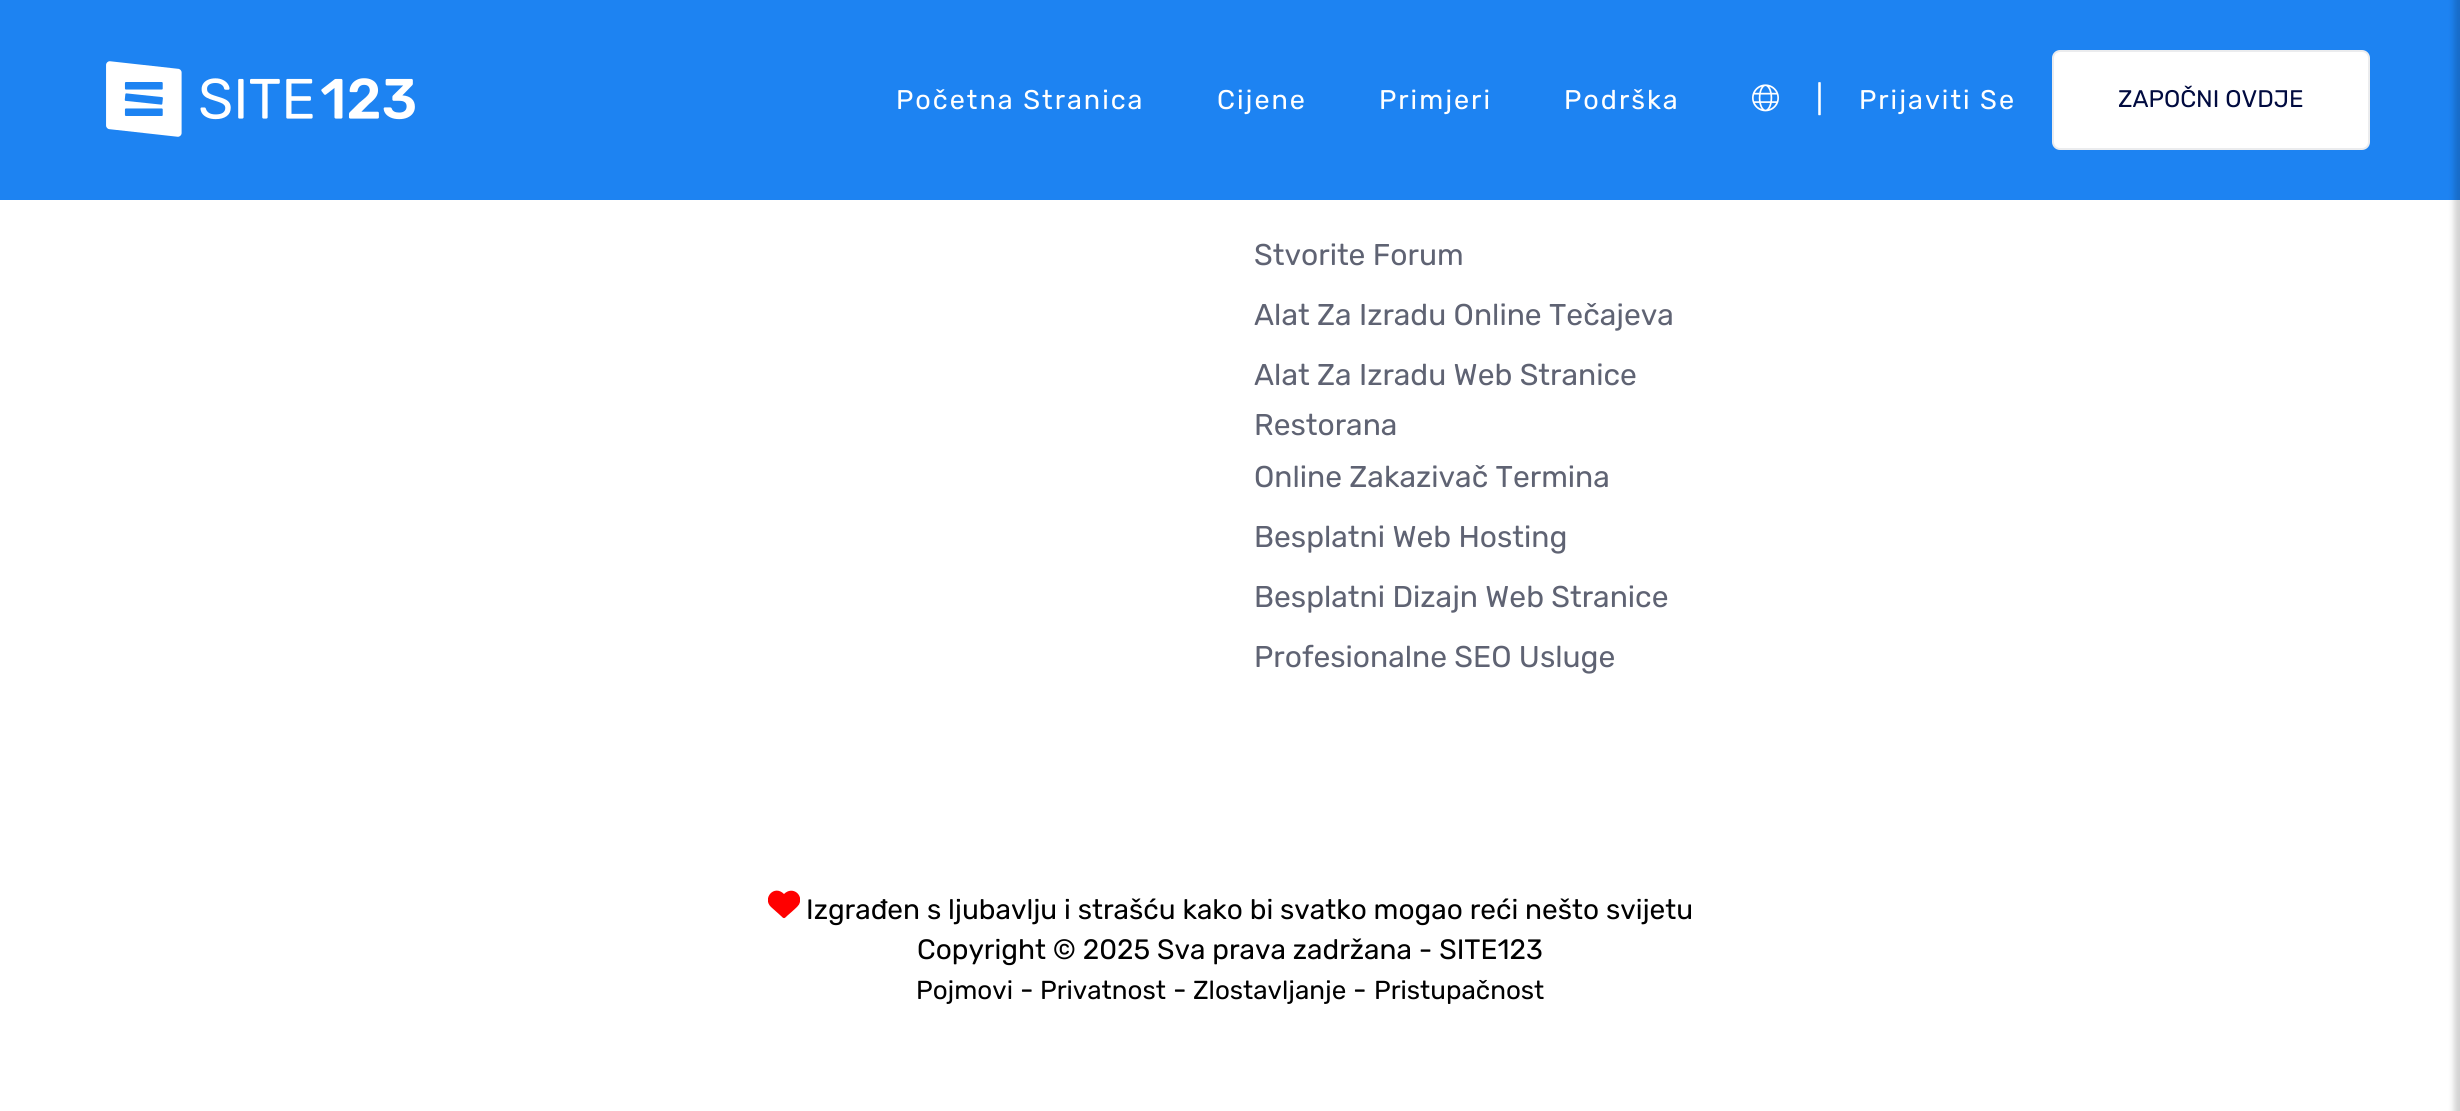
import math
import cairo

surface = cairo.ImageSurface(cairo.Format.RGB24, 2460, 1111)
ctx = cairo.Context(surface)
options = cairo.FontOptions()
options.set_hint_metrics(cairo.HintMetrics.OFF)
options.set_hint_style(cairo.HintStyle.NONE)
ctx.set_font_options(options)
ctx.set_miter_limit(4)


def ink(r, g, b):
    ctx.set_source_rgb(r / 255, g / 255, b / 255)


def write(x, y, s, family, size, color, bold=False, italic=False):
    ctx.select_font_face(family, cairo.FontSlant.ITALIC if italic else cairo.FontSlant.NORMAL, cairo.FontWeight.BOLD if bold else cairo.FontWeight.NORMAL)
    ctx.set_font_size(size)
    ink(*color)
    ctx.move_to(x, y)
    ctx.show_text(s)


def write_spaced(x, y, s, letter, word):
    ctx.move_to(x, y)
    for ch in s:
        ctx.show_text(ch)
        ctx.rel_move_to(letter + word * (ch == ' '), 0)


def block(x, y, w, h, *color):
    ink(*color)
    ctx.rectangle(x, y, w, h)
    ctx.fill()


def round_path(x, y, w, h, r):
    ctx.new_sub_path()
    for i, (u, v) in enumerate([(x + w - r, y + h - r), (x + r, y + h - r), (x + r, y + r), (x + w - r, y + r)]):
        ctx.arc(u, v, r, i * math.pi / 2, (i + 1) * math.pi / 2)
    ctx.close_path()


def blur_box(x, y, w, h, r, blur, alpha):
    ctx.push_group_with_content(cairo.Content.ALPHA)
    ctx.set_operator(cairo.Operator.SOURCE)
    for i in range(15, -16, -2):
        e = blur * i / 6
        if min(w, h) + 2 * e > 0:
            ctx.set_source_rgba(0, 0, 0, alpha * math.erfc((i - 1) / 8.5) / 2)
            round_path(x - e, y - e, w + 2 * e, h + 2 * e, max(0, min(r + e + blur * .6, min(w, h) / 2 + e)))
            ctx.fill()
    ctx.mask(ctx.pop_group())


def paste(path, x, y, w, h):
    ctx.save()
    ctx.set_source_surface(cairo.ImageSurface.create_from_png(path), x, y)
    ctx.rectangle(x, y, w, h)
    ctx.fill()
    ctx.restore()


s1 = dict(family="Rubik", size=30, color=(255, 255, 255))
s2 = dict(family="Rubik", size=24, color=(1, 11, 64))
s3 = dict(family="Rubik", size=30, color=(95, 99, 115))
s4 = dict(family="Rubik", size=28, color=(0, 0, 0))
s5 = dict(family="Rubik", size=26, color=(0, 0, 0))

ink(255, 255, 255)
ctx.paint()
block(0, 0, 2460, 200, 29, 131, 242)
paste("pic1.png", 106, 61, 309, 76)
ctx.select_font_face("Rubik")
ctx.set_font_size(27)
ink(255, 255, 255)
write_spaced(896, 109, "Početna Stranica", 2, 0)
write_spaced(1217, 109, "Cijene", 2, 0)
write_spaced(1379, 109, "Primjeri", 2, 0)
write_spaced(1564, 109, "Podrška", 2, 0)
paste("pic2.png", 1752, 84, 27, 28)
write(1816, 109, "|", **s1)
ctx.set_font_size(27)
write_spaced(1859, 109, "Prijaviti Se", 2, 0)
round_path(2053, 51, 316, 98, 7)
ctx.fill_preserve()
ink(235, 236, 238)
ctx.stroke()
write(2118, 107, "ZAPOČNI OVDJE", **s2)
ink(0, 0, 0)
blur_box(2454, -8, 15, 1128, 0, 3, 0.18)
write(1254, 265, "Stvorite Forum", **s3)
write(1254, 325, "Alat Za Izradu Online Tečajeva", **s3)
write(1254, 385, "Alat Za Izradu Web Stranice", **s3)
write(1254, 435, "Restorana", **s3)
write(1254, 487, "Online Zakazivač Termina", **s3)
write(1254, 547, "Besplatni Web Hosting", **s3)
write(1254, 607, "Besplatni Dizajn Web Stranice", **s3)
write(1254, 667, "Profesionalne SEO Usluge", **s3)
ctx.save()
ctx.rectangle(768, 888, 32, 32)
ctx.clip()
ink(255, 0, 0)
ctx.new_path()
ctx.move_to(771, 907)
ctx.line_to(780.5, 915.5)
ctx.curve_to(784, 919, 784, 919, 787.5, 915.5)
ctx.line_to(791.5, 912)
ctx.curve_to(794, 909.5, 797, 907.5, 799, 904.5)
ctx.curve_to(804, 895, 792.5, 885.5, 784, 894)
ctx.curve_to(774, 884, 762, 898.5, 771, 907)
ctx.close_path()
ctx.fill()
ctx.restore()
write(806, 919, "Izgrađen s ljubavlju i strašću kako bi svatko mogao reći nešto svijetu", **s4)
write(917, 959, "Copyright © 2025 Sva prava zadržana - SITE123", **s4)
write(916, 999, "Pojmovi", **s5)
write(1020, 999, "-", **s4)
write(1040, 999, "Privatnost", **s5)
write(1173, 999, "-", **s4)
write(1193, 999, "Zlostavljanje", **s5)
write(1353, 999, "-", **s4)
write(1374, 999, "Pristupačnost", **s5)
surface.write_to_png("screenshot.png")
